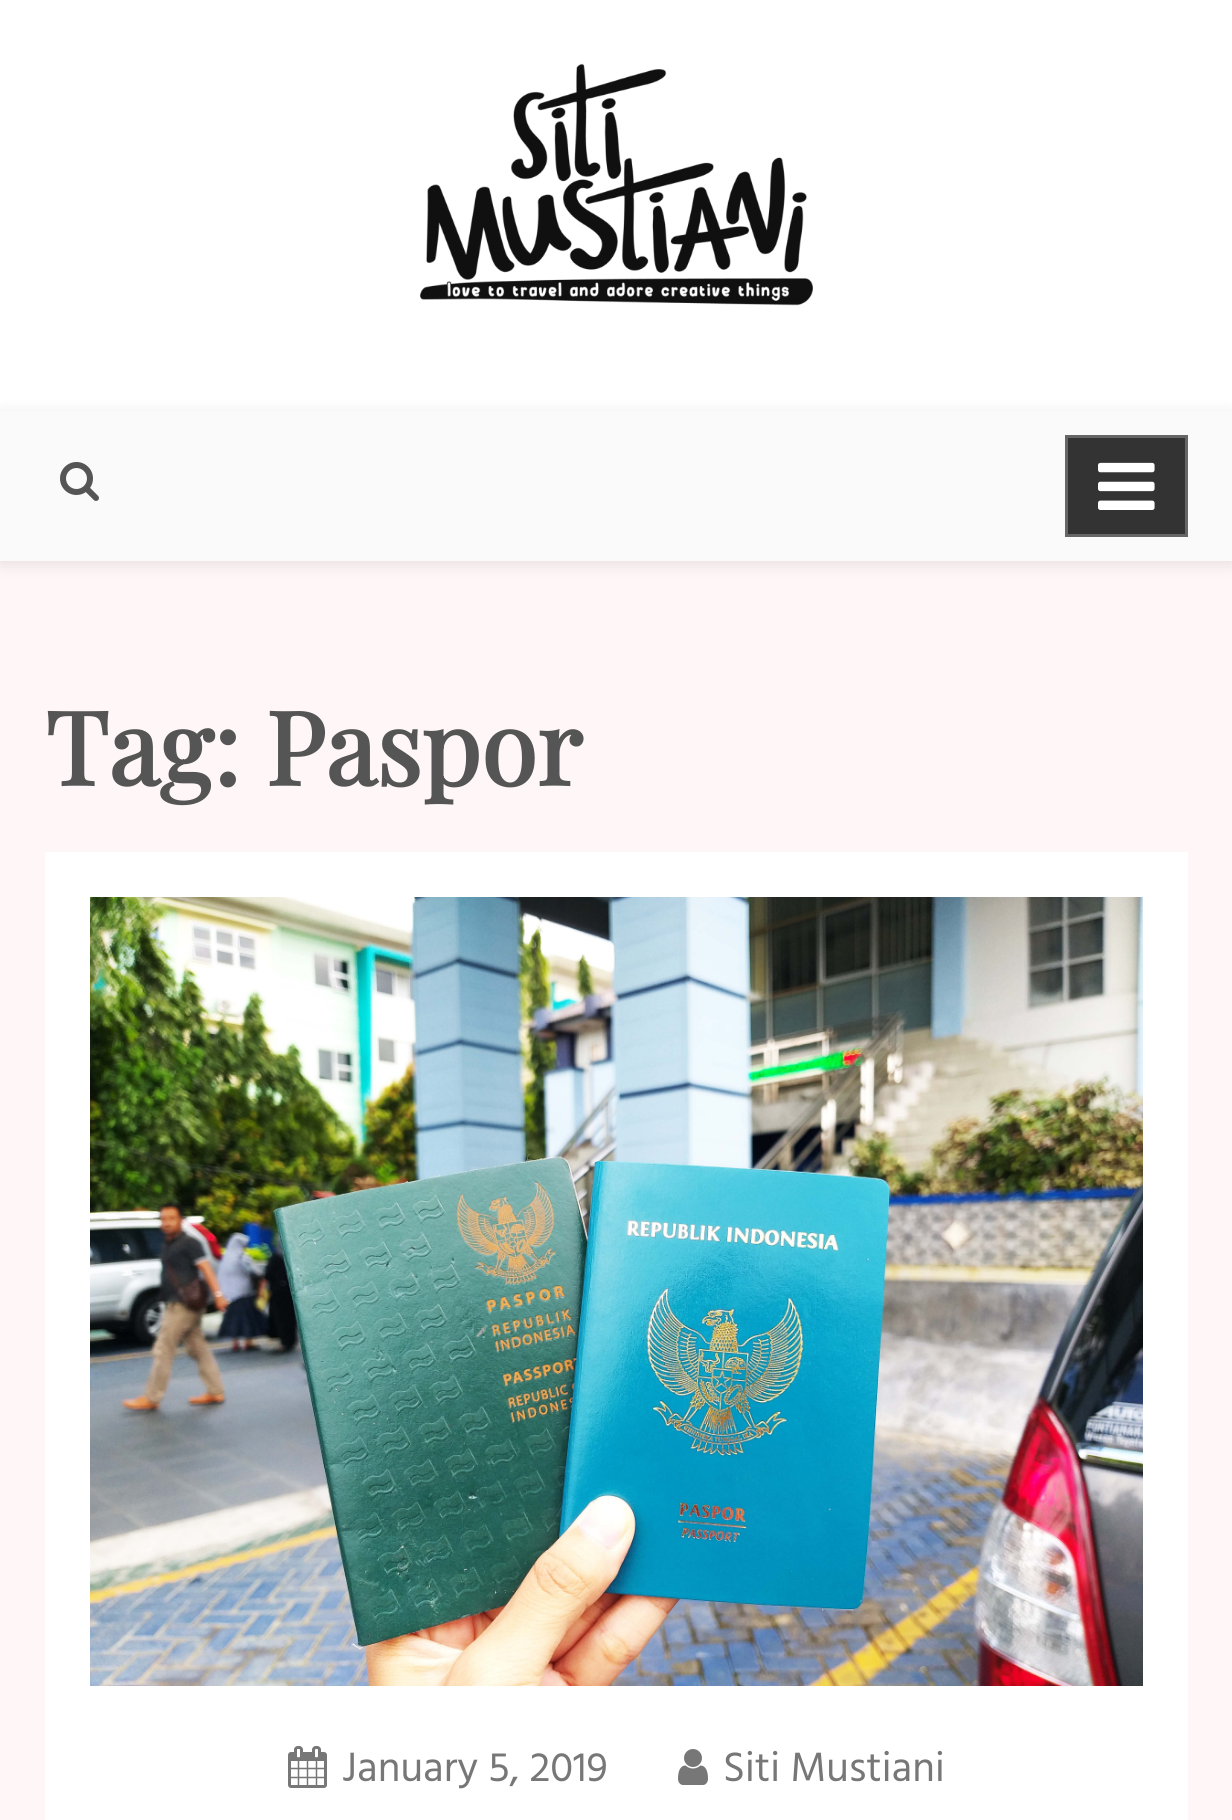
import math
import cairo

surface = cairo.ImageSurface(cairo.Format.RGB24, 1232, 1820)
ctx = cairo.Context(surface)
options = cairo.FontOptions()
options.set_hint_metrics(cairo.HintMetrics.OFF)
options.set_hint_style(cairo.HintStyle.NONE)
ctx.set_font_options(options)
ctx.set_miter_limit(4)


def ink(r, g, b):
    ctx.set_source_rgb(r / 255, g / 255, b / 255)


def write(x, y, s, family, size, color, bold=False, italic=False):
    ctx.select_font_face(family, cairo.FontSlant.ITALIC if italic else cairo.FontSlant.NORMAL, cairo.FontWeight.BOLD if bold else cairo.FontWeight.NORMAL)
    ctx.set_font_size(size)
    ink(*color)
    ctx.move_to(x, y)
    ctx.show_text(s)


def block(x, y, w, h, *color):
    ink(*color)
    ctx.rectangle(x, y, w, h)
    ctx.fill()


def round_path(x, y, w, h, r):
    ctx.new_sub_path()
    for i, (u, v) in enumerate([(x + w - r, y + h - r), (x + r, y + h - r), (x + r, y + r), (x + w - r, y + r)]):
        ctx.arc(u, v, r, i * math.pi / 2, (i + 1) * math.pi / 2)
    ctx.close_path()


def blur_box(x, y, w, h, r, blur, alpha):
    ctx.push_group_with_content(cairo.Content.ALPHA)
    ctx.set_operator(cairo.Operator.SOURCE)
    for i in range(15, -16, -2):
        e = blur * i / 6
        if min(w, h) + 2 * e > 0:
            ctx.set_source_rgba(0, 0, 0, alpha * math.erfc((i - 1) / 8.5) / 2)
            round_path(x - e, y - e, w + 2 * e, h + 2 * e, max(0, min(r + e + blur * .6, min(w, h) / 2 + e)))
            ctx.fill()
    ctx.mask(ctx.pop_group())


def paste(path, x, y, w, h):
    ctx.save()
    ctx.set_source_surface(cairo.ImageSurface.create_from_png(path), x, y)
    ctx.rectangle(x, y, w, h)
    ctx.fill()
    ctx.restore()


s1 = dict(family="Playfair Display", size=102, color=(85, 85, 85), bold=True)
s2 = dict(family="Hind", size=42, color=(119, 119, 119))

ink(255, 246, 247)
ctx.paint()
block(0, 0, 1232, 411, 255, 255, 255)
paste("pic1.png", 420, 63, 393, 243)
ink(0, 0, 0)
blur_box(0, 414, 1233, 150, 0, 7.5, 0.1)
block(0, 411, 1232, 150, 250, 250, 250)
paste("pic2.png", 60, 462, 39, 39)
ink(51, 51, 51)
ctx.rectangle(1066.5, 436.5, 120, 99)
ctx.fill_preserve()
ink(102, 102, 102)
ctx.set_line_width(3)
ctx.stroke()
paste("pic3.png", 1098, 462, 57, 48)
write(45, 786, "Tag: Paspor", **s1)
block(45, 852, 1143, 968, 255, 255, 255)
paste("pic4.png", 90, 897, 1053, 789)
paste("pic5.png", 288, 1746, 39, 42)
write(342, 1781, "January 5, 2019", **s2)
paste("pic6.png", 678, 1749, 30, 36)
write(723, 1781, "Siti Mustiani", **s2)
surface.write_to_png("screenshot.png")
